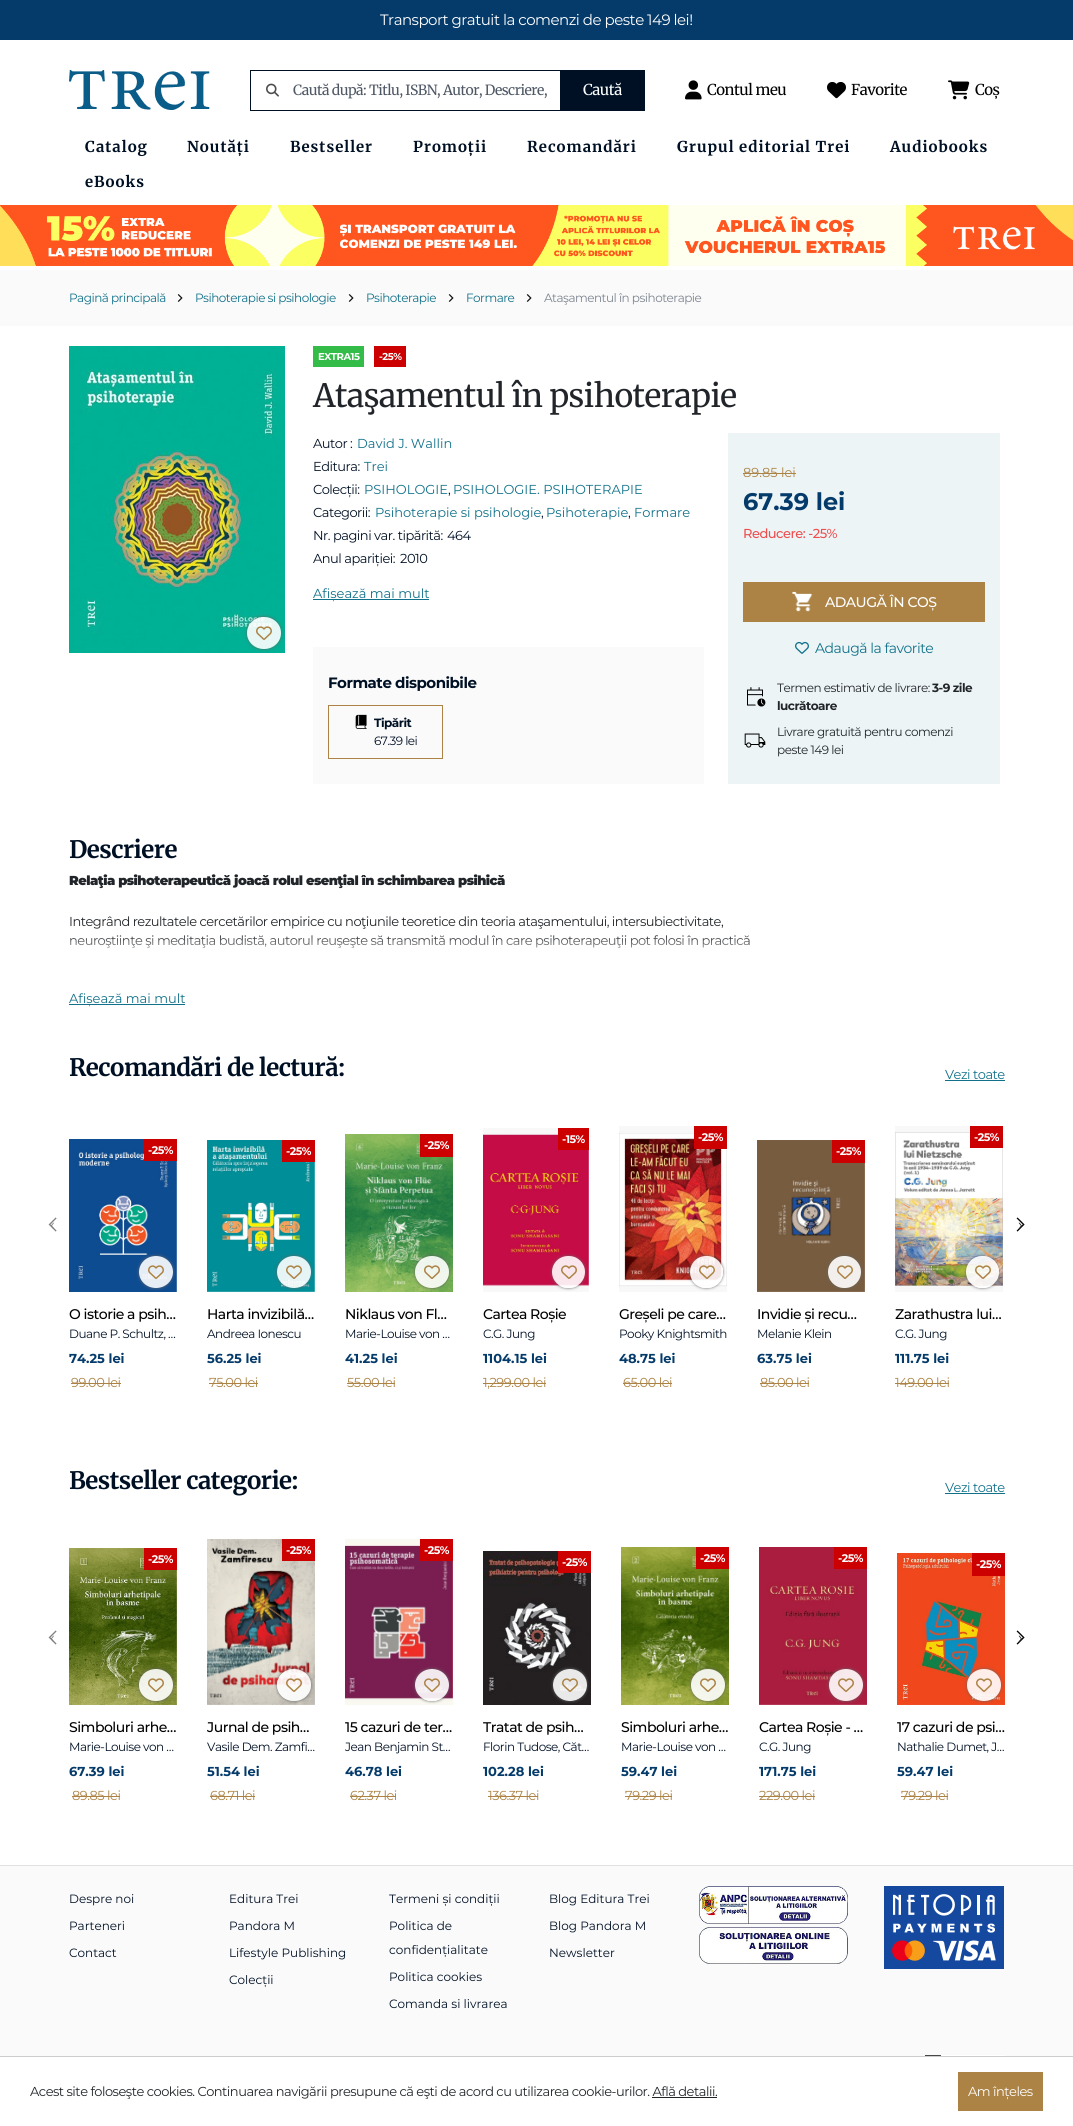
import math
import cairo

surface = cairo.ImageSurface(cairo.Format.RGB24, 1073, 2126)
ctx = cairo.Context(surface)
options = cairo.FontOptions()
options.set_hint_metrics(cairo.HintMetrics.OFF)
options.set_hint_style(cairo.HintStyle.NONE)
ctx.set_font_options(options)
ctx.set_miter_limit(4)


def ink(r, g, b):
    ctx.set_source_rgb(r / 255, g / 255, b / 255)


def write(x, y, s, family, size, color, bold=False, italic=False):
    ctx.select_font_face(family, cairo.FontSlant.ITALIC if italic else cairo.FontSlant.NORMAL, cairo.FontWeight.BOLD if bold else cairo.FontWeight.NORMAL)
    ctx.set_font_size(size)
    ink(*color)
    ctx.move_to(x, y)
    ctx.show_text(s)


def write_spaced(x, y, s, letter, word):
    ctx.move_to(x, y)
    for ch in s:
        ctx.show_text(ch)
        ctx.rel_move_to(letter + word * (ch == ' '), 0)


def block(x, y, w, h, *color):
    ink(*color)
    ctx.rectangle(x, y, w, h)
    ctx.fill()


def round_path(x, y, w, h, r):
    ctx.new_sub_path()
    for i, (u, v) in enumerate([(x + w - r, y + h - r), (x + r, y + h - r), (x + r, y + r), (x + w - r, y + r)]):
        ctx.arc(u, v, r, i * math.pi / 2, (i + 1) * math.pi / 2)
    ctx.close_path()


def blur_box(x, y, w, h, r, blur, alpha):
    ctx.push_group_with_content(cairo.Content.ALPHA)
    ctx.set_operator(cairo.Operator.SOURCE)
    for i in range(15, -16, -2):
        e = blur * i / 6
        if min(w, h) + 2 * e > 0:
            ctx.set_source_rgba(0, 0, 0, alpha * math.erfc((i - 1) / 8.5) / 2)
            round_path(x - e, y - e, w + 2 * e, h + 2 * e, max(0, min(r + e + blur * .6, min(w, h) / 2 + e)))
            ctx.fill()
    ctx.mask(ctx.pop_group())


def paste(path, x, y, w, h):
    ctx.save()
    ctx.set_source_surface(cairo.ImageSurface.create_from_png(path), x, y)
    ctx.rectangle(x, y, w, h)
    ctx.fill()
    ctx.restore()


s1 = dict(family="Montserrat", size=13, color=(17, 113, 138))
s2 = dict(family="Montserrat", size=13, color=(172, 131, 69))
s3 = dict(family="Montserrat", size=24, color=(5, 59, 106), bold=True)
s4 = dict(family="Montserrat", size=13, color=(5, 59, 106), bold=True)
s5 = dict(family="Montserrat", size=12, color=(0, 16, 36))

ink(255, 255, 255)
ctx.paint()
block(0, 0, 1073, 40, 5, 59, 106)
ctx.select_font_face("Montserrat")
ctx.set_font_size(15)
ink(255, 255, 255)
write_spaced(380, 25, "Transport gratuit la comenzi de peste 149 lei!", -0.5, 0)
paste("pic1.png", 69, 70, 141, 40)
paste("pic2.png", 266, 83, 13, 14)
block(250, 70, 310, 1, 0, 16, 36)
block(250, 110, 310, 1, 0, 16, 36)
block(250, 70, 1, 41, 0, 16, 36)
ctx.select_font_face("Merriweather")
ctx.set_font_size(14)
ink(79, 88, 101)
write_spaced(293, 95, "Caută după: Titlu, ISBN, Autor, Descriere,", -0.5, 0)
block(560, 70, 85, 41, 0, 16, 36)
ctx.set_font_size(15)
ink(255, 255, 255)
write_spaced(583, 95, "Caută", -0.5, 0)
paste("pic3.png", 685, 80, 17, 20)
ink(0, 0, 0)
write_spaced(707, 95, "Contul meu", -0.5, 0)
paste("pic4.png", 827, 82, 19, 17)
write_spaced(851, 95, "Favorite", -0.5, 0)
paste("pic5.png", 948, 80, 22, 20)
write_spaced(975, 95, "Coș", -0.5, 0)
ctx.select_font_face("Merriweather", cairo.FontSlant.NORMAL, cairo.FontWeight.BOLD)
ink(0, 16, 36)
write_spaced(85, 152, "Catalog", 1, 0)
write_spaced(187, 152, "Noutăți", 1, 0)
write_spaced(290, 152, "Bestseller", 1, 0)
write_spaced(413, 152, "Promoții", 1, 0)
write_spaced(527, 152, "Recomandări", 1, 0)
write_spaced(677, 152, "Grupul editorial Trei", 1, 0)
write_spaced(890, 152, "Audiobooks", 1, 0)
write_spaced(85, 187, "eBooks", 1, 0)
paste("pic6.png", 0, 205, 1073, 61)
block(0, 270, 1073, 56, 250, 250, 250)
ctx.select_font_face("Montserrat")
ctx.set_font_size(12)
ink(17, 113, 138)
write_spaced(69, 302, "Pagină principală", -0.5, 0)
paste("pic7.png", 177, 294, 6, 8)
write_spaced(195, 302, "Psihoterapie si psihologie", -0.5, 0)
paste("pic7.png", 348, 294, 6, 8)
write_spaced(366, 302, "Psihoterapie", -0.5, 0)
paste("pic7.png", 448, 294, 6, 8)
write_spaced(466, 302, "Formare", -0.5, 0)
paste("pic7.png", 526, 294, 6, 8)
ink(125, 133, 143)
write_spaced(544, 302, "Ataşamentul în psihoterapie", -0.5, 0)
paste("pic8.png", 69, 346, 216, 307)
ctx.save()
ctx.set_fill_rule(cairo.FillRule.EVEN_ODD)
ctx.new_path()
ctx.move_to(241, 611)
ctx.line_to(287, 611)
ctx.line_to(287, 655)
ctx.line_to(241, 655)
ctx.close_path()
ctx.move_to(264, 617)
ctx.curve_to(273.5, 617, 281, 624, 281, 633)
ctx.curve_to(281, 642, 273.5, 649, 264, 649)
ctx.curve_to(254.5, 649, 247, 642, 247, 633)
ctx.curve_to(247, 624, 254.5, 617, 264, 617)
ctx.close_path()
ctx.clip()
ink(102, 102, 102)
blur_box(247, 617, 34, 32, 16, 1.5, 1)
ctx.restore()
ctx.set_source_rgba(1, 1, 1, 0.9)
ctx.new_path()
ctx.move_to(264, 617)
ctx.curve_to(273.5, 617, 281, 624, 281, 633)
ctx.curve_to(281, 642, 273.5, 649, 264, 649)
ctx.curve_to(254.5, 649, 247, 642, 247, 633)
ctx.curve_to(247, 624, 254.5, 617, 264, 617)
ctx.close_path()
ctx.fill()
paste("pic9.png", 256, 626, 16, 14)
block(313, 346, 51, 21, 51, 188, 72)
ctx.select_font_face("Montserrat", cairo.FontSlant.NORMAL, cairo.FontWeight.BOLD)
ctx.set_font_size(10)
ink(255, 255, 255)
write_spaced(318, 360, "EXTRA15", -0.5, 0)
block(374, 346, 32, 21, 204, 0, 0)
ink(255, 255, 255)
write_spaced(379, 360, "-25%", -0.5, 0)
ctx.select_font_face("Merriweather")
ctx.set_font_size(32)
ink(33, 37, 41)
write_spaced(313, 407, "Ataşamentul în psihoterapie", -0.5, 0)
ctx.select_font_face("Montserrat")
ctx.set_font_size(13)
ink(0, 16, 36)
write_spaced(313, 448, "Autor :", -0.5, 0)
write(357, 448, "David J. Wallin", **s1)
ink(0, 16, 36)
write_spaced(313, 471, "Editura:", -0.5, 0)
write(364, 471, "Trei", **s1)
ink(0, 16, 36)
write_spaced(313, 494, "Colecții:", -0.5, 0)
write(364, 494, "PSIHOLOGIE", **s1)
ink(0, 16, 36)
write_spaced(448, 494, ",", -0.5, 0)
write(453, 494, "PSIHOLOGIE. PSIHOTERAPIE", **s1)
ink(0, 16, 36)
write_spaced(313, 517, "Categorii:", -0.5, 0)
write(375, 517, "Psihoterapie si psihologie", **s1)
ink(0, 16, 36)
write_spaced(541, 517, ",", -0.5, 0)
write(546, 517, "Psihoterapie", **s1)
ink(0, 16, 36)
write_spaced(628, 517, ",", -0.5, 0)
write(634, 517, "Formare", **s1)
ink(0, 16, 36)
write_spaced(313, 540, "Nr. pagini var. tipărită:", -0.5, 0)
write_spaced(447, 540, "464", -0.5, 0)
write_spaced(313, 563, "Anul apariției:", -0.5, 0)
write_spaced(400, 563, "2010", -0.5, 0)
block(313, 599, 116, 1, 17, 113, 138)
write(313, 598, "Afișează mai mult", **s1)
block(313, 647, 391, 137, 250, 250, 250)
ctx.select_font_face("Montserrat", cairo.FontSlant.NORMAL, cairo.FontWeight.BOLD)
ctx.set_font_size(15)
ink(0, 16, 36)
write_spaced(328, 688, "Formate disponibile", -0.5, 0)
ctx.rectangle(328.5, 705.5, 114, 53)
ink(172, 131, 69)
ctx.set_line_width(1)
ctx.stroke()
paste("pic10.png", 355, 714, 12, 15)
ctx.set_font_size(12)
ink(0, 16, 36)
write_spaced(374, 727, "Tipărit", -0.5, 0)
ctx.select_font_face("Montserrat")
write_spaced(374, 745, "67.39 lei", -0.5, 0)
block(728, 433, 272, 351, 236, 244, 246)
write(743, 477, "89.85 lei", **s2)
block(743, 473, 53, 1, 172, 131, 69)
write(743, 510, "67.39 lei", **s3)
ctx.select_font_face("Montserrat Medium")
ctx.set_font_size(13)
ink(237, 78, 78)
write_spaced(743, 538, "Reducere: -25%", -0.5, 0)
block(743, 582, 242, 40, 172, 131, 69)
paste("pic11.png", 792, 591, 21, 21)
ctx.set_font_size(14)
ink(255, 255, 255)
write_spaced(825, 607, "ADAUGĂ ÎN COȘ", -0.5, 0)
paste("pic12.png", 795, 641, 14, 13)
ctx.select_font_face("Montserrat")
ink(17, 113, 138)
write_spaced(815, 653, "Adaugă la favorite", -0.5, 0)
paste("pic13.png", 747, 687, 19, 20)
ctx.set_font_size(12)
ink(33, 37, 41)
write_spaced(777, 692, "Termen estimativ de livrare:", -0.5, 0)
ctx.select_font_face("Montserrat", cairo.FontSlant.NORMAL, cairo.FontWeight.BOLD)
write_spaced(932, 692, "3-9 zile", -0.5, 0)
write_spaced(777, 710, "lucrătoare", -0.5, 0)
paste("pic14.png", 744, 733, 22, 15)
ctx.select_font_face("Montserrat")
write_spaced(777, 736, "Livrare gratuită pentru comenzi", -0.5, 0)
write_spaced(777, 754, "peste 149 lei", -0.5, 0)
ctx.select_font_face("Merriweather", cairo.FontSlant.NORMAL, cairo.FontWeight.BOLD)
ctx.set_font_size(24)
ink(0, 16, 36)
write_spaced(69, 858, "Descriere", -0.5, 0)
ctx.select_font_face("Montserrat Black")
ctx.set_font_size(13)
ink(33, 37, 41)
write_spaced(69, 885, "Relaţia psihoterapeutică joacă rolul esenţial în schimbarea psihică", -0.5, 0)
ctx.select_font_face("Montserrat")
write_spaced(69, 926, "Integrând rezultatele cercetărilor empirice cu noţiunile teoretice din teoria ataşamentului, intersubiectivitate,", -0.5, 0)
write_spaced(69, 945, "neuroştiinţe şi meditaţia budistă, autorul reuşeşte să transmită modul în care psihoterapeuţii pot folosi în practică", -0.5, 0)
gradient = cairo.LinearGradient(417, 933, 417, 973)
gradient.add_color_stop_rgba(0, 1, 1, 1, 0)
gradient.add_color_stop_rgba(0.8, 1, 1, 1, 1)
gradient.add_color_stop_rgba(1, 1, 1, 1, 1)
ctx.set_source(gradient)
ctx.rectangle(69, 935, 680, 13)
ctx.fill()
block(69, 1004, 116, 1, 17, 113, 138)
write(69, 1003, "Afișează mai mult", **s1)
ctx.select_font_face("Merriweather", cairo.FontSlant.NORMAL, cairo.FontWeight.BOLD)
ctx.set_font_size(24)
ink(0, 16, 36)
write_spaced(69, 1076, "Recomandări de lectură:", -0.5, 0)
ctx.select_font_face("Montserrat")
ctx.set_font_size(13)
ink(17, 113, 138)
write_spaced(945, 1079, "Vezi toate", -0.5, 0)
block(945, 1080, 60, 1, 17, 113, 138)
paste("pic15.png", 69, 1139, 108, 153)
block(144, 1139, 33, 22, 204, 0, 0)
ctx.select_font_face("Montserrat", cairo.FontSlant.NORMAL, cairo.FontWeight.BOLD)
ctx.set_font_size(11)
ink(255, 255, 255)
write_spaced(148, 1154, "-25%", -0.5, 0)
ctx.save()
ctx.set_fill_rule(cairo.FillRule.EVEN_ODD)
ctx.new_path()
ctx.move_to(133, 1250)
ctx.line_to(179, 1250)
ctx.line_to(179, 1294)
ctx.line_to(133, 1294)
ctx.close_path()
ctx.move_to(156, 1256)
ctx.curve_to(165.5, 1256, 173, 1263, 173, 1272)
ctx.curve_to(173, 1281, 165.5, 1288, 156, 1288)
ctx.curve_to(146.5, 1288, 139, 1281, 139, 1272)
ctx.curve_to(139, 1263, 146.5, 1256, 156, 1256)
ctx.close_path()
ctx.clip()
ink(102, 102, 102)
blur_box(139, 1256, 34, 32, 16, 1.5, 1)
ctx.restore()
ctx.set_source_rgba(1, 1, 1, 0.9)
ctx.new_path()
ctx.move_to(156, 1256)
ctx.curve_to(165.5, 1256, 173, 1263, 173, 1272)
ctx.curve_to(173, 1281, 165.5, 1288, 156, 1288)
ctx.curve_to(146.5, 1288, 139, 1281, 139, 1272)
ctx.curve_to(139, 1263, 146.5, 1256, 156, 1256)
ctx.close_path()
ctx.fill()
paste("pic16.png", 148, 1265, 16, 14)
ctx.select_font_face("Montserrat Medium")
ctx.set_font_size(14)
ink(0, 0, 0)
write_spaced(69, 1319, "O istorie a psih…", -0.5, 0)
ctx.select_font_face("Montserrat")
ctx.set_font_size(12)
ink(0, 16, 36)
write_spaced(69, 1338, "Duane P. Schultz, …", -0.5, 0)
ctx.save()
ctx.rectangle(69, 1096, 936, 307)
ctx.clip()
write(69, 1363, "74.25 lei", **s4)
ctx.restore()
ctx.set_font_size(13)
ink(172, 131, 69)
write_spaced(71, 1387, "99.00 lei", -0.5, 0)
block(71, 1383, 50, 1, 172, 131, 69)
paste("pic17.png", 207, 1140, 108, 152)
block(282, 1140, 33, 22, 204, 0, 0)
ctx.select_font_face("Montserrat", cairo.FontSlant.NORMAL, cairo.FontWeight.BOLD)
ctx.set_font_size(11)
ink(255, 255, 255)
write_spaced(286, 1155, "-25%", -0.5, 0)
ctx.save()
ctx.set_fill_rule(cairo.FillRule.EVEN_ODD)
ctx.new_path()
ctx.move_to(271, 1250)
ctx.line_to(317, 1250)
ctx.line_to(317, 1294)
ctx.line_to(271, 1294)
ctx.close_path()
ctx.move_to(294, 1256)
ctx.curve_to(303.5, 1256, 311, 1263, 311, 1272)
ctx.curve_to(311, 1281, 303.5, 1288, 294, 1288)
ctx.curve_to(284.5, 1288, 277, 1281, 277, 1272)
ctx.curve_to(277, 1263, 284.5, 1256, 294, 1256)
ctx.close_path()
ctx.clip()
ink(102, 102, 102)
blur_box(277, 1256, 34, 32, 16, 1.5, 1)
ctx.restore()
ctx.set_source_rgba(1, 1, 1, 0.9)
ctx.new_path()
ctx.move_to(294, 1256)
ctx.curve_to(303.5, 1256, 311, 1263, 311, 1272)
ctx.curve_to(311, 1281, 303.5, 1288, 294, 1288)
ctx.curve_to(284.5, 1288, 277, 1281, 277, 1272)
ctx.curve_to(277, 1263, 284.5, 1256, 294, 1256)
ctx.close_path()
ctx.fill()
paste("pic18.png", 286, 1265, 16, 14)
ctx.select_font_face("Montserrat Medium")
ctx.set_font_size(14)
ink(0, 0, 0)
write_spaced(207, 1319, "Harta invizibilă…", -0.5, 0)
ctx.select_font_face("Montserrat")
ctx.set_font_size(12)
ink(0, 16, 36)
write_spaced(207, 1338, "Andreea Ionescu", -0.5, 0)
write(207, 1363, "56.25 lei", **s4)
ctx.select_font_face("Montserrat")
ink(172, 131, 69)
write_spaced(209, 1387, "75.00 lei", -0.5, 0)
block(209, 1383, 49, 1, 172, 131, 69)
paste("pic19.png", 345, 1134, 108, 158)
block(420, 1134, 33, 23, 204, 0, 0)
ctx.select_font_face("Montserrat", cairo.FontSlant.NORMAL, cairo.FontWeight.BOLD)
ctx.set_font_size(11)
ink(255, 255, 255)
write_spaced(424, 1149, "-25%", -0.5, 0)
ctx.save()
ctx.set_fill_rule(cairo.FillRule.EVEN_ODD)
ctx.new_path()
ctx.move_to(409, 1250)
ctx.line_to(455, 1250)
ctx.line_to(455, 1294)
ctx.line_to(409, 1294)
ctx.close_path()
ctx.move_to(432, 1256)
ctx.curve_to(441.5, 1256, 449, 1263, 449, 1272)
ctx.curve_to(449, 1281, 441.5, 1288, 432, 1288)
ctx.curve_to(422.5, 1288, 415, 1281, 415, 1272)
ctx.curve_to(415, 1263, 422.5, 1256, 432, 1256)
ctx.close_path()
ctx.clip()
ink(102, 102, 102)
blur_box(415, 1256, 34, 32, 16, 1.5, 1)
ctx.restore()
ctx.set_source_rgba(1, 1, 1, 0.9)
ctx.new_path()
ctx.move_to(432, 1256)
ctx.curve_to(441.5, 1256, 449, 1263, 449, 1272)
ctx.curve_to(449, 1281, 441.5, 1288, 432, 1288)
ctx.curve_to(422.5, 1288, 415, 1281, 415, 1272)
ctx.curve_to(415, 1263, 422.5, 1256, 432, 1256)
ctx.close_path()
ctx.fill()
paste("pic20.png", 424, 1265, 16, 14)
ctx.select_font_face("Montserrat Medium")
ctx.set_font_size(14)
ink(0, 0, 0)
write_spaced(345, 1319, "Niklaus von Fl…", -0.5, 0)
ctx.select_font_face("Montserrat")
ctx.set_font_size(12)
ink(0, 16, 36)
write_spaced(345, 1338, "Marie-Louise von …", -0.5, 0)
write(345, 1363, "41.25 lei", **s4)
ctx.select_font_face("Montserrat")
ink(172, 131, 69)
write_spaced(347, 1387, "55.00 lei", -0.5, 0)
block(347, 1383, 48, 1, 172, 131, 69)
paste("pic21.png", 483, 1128, 106, 164)
block(558, 1128, 31, 22, 204, 0, 0)
ctx.select_font_face("Montserrat", cairo.FontSlant.NORMAL, cairo.FontWeight.BOLD)
ctx.set_font_size(11)
ink(255, 255, 255)
write_spaced(562, 1143, "-15%", -0.5, 0)
ctx.save()
ctx.set_fill_rule(cairo.FillRule.EVEN_ODD)
ctx.new_path()
ctx.move_to(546, 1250)
ctx.line_to(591, 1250)
ctx.line_to(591, 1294)
ctx.line_to(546, 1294)
ctx.close_path()
ctx.move_to(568, 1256)
ctx.line_to(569, 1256)
ctx.curve_to(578, 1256, 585, 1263, 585, 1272)
ctx.curve_to(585, 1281, 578, 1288, 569, 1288)
ctx.line_to(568, 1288)
ctx.curve_to(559, 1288, 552, 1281, 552, 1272)
ctx.curve_to(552, 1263, 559, 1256, 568, 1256)
ctx.close_path()
ctx.clip()
ink(102, 102, 102)
blur_box(552, 1256, 33, 32, 16, 1.5, 1)
ctx.restore()
ctx.set_source_rgba(1, 1, 1, 0.9)
round_path(552, 1256, 33, 32, 16)
ctx.fill()
paste("pic22.png", 561, 1265, 16, 14)
ctx.select_font_face("Montserrat Medium")
ctx.set_font_size(14)
ink(0, 0, 0)
write_spaced(483, 1319, "Cartea Roșie", -0.5, 0)
ctx.select_font_face("Montserrat")
ctx.set_font_size(12)
ink(0, 16, 36)
write_spaced(483, 1338, "C.G. Jung", -0.5, 0)
write(483, 1363, "1104.15 lei", **s4)
ctx.select_font_face("Montserrat")
ink(172, 131, 69)
write_spaced(483, 1387, "1,299.00 lei", -0.5, 0)
block(483, 1383, 63, 1, 172, 131, 69)
paste("pic23.png", 619, 1126, 108, 166)
block(694, 1126, 33, 23, 204, 0, 0)
ctx.select_font_face("Montserrat", cairo.FontSlant.NORMAL, cairo.FontWeight.BOLD)
ctx.set_font_size(11)
ink(255, 255, 255)
write_spaced(698, 1141, "-25%", -0.5, 0)
ctx.save()
ctx.set_fill_rule(cairo.FillRule.EVEN_ODD)
ctx.new_path()
ctx.move_to(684, 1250)
ctx.line_to(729, 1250)
ctx.line_to(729, 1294)
ctx.line_to(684, 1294)
ctx.close_path()
ctx.move_to(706, 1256)
ctx.line_to(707, 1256)
ctx.curve_to(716, 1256, 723, 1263, 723, 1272)
ctx.curve_to(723, 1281, 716, 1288, 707, 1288)
ctx.line_to(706, 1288)
ctx.curve_to(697, 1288, 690, 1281, 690, 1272)
ctx.curve_to(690, 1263, 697, 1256, 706, 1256)
ctx.close_path()
ctx.clip()
ink(102, 102, 102)
blur_box(690, 1256, 33, 32, 16, 1.5, 1)
ctx.restore()
ctx.set_source_rgba(1, 1, 1, 0.9)
round_path(690, 1256, 33, 32, 16)
ctx.fill()
paste("pic24.png", 699, 1265, 16, 14)
ctx.select_font_face("Montserrat Medium")
ctx.set_font_size(14)
ink(0, 0, 0)
write_spaced(619, 1319, "Greșeli pe care…", -0.5, 0)
ctx.select_font_face("Montserrat")
ctx.set_font_size(12)
ink(0, 16, 36)
write_spaced(619, 1338, "Pooky Knightsmith", -0.5, 0)
write(619, 1363, "48.75 lei", **s4)
ctx.select_font_face("Montserrat")
ink(172, 131, 69)
write_spaced(623, 1387, "65.00 lei", -0.5, 0)
block(623, 1383, 49, 1, 172, 131, 69)
paste("pic25.png", 757, 1140, 108, 152)
block(832, 1140, 33, 23, 204, 0, 0)
ctx.select_font_face("Montserrat", cairo.FontSlant.NORMAL, cairo.FontWeight.BOLD)
ctx.set_font_size(11)
ink(255, 255, 255)
write_spaced(836, 1155, "-25%", -0.5, 0)
ctx.save()
ctx.set_fill_rule(cairo.FillRule.EVEN_ODD)
ctx.new_path()
ctx.move_to(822, 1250)
ctx.line_to(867, 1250)
ctx.line_to(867, 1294)
ctx.line_to(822, 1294)
ctx.close_path()
ctx.move_to(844, 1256)
ctx.line_to(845, 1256)
ctx.curve_to(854, 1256, 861, 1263, 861, 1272)
ctx.curve_to(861, 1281, 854, 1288, 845, 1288)
ctx.line_to(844, 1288)
ctx.curve_to(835, 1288, 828, 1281, 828, 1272)
ctx.curve_to(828, 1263, 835, 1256, 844, 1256)
ctx.close_path()
ctx.clip()
ink(102, 102, 102)
blur_box(828, 1256, 33, 32, 16, 1.5, 1)
ctx.restore()
ctx.set_source_rgba(1, 1, 1, 0.9)
round_path(828, 1256, 33, 32, 16)
ctx.fill()
paste("pic26.png", 837, 1265, 16, 14)
ctx.select_font_face("Montserrat Medium")
ctx.set_font_size(14)
ink(0, 0, 0)
write_spaced(757, 1319, "Invidie și recu…", -0.5, 0)
ctx.select_font_face("Montserrat")
ctx.set_font_size(12)
ink(0, 16, 36)
write_spaced(757, 1338, "Melanie Klein", -0.5, 0)
write(757, 1363, "63.75 lei", **s4)
ctx.select_font_face("Montserrat")
ink(172, 131, 69)
write_spaced(760, 1387, "85.00 lei", -0.5, 0)
block(760, 1383, 49, 1, 172, 131, 69)
paste("pic27.png", 895, 1126, 108, 166)
block(970, 1126, 33, 22, 204, 0, 0)
ctx.select_font_face("Montserrat", cairo.FontSlant.NORMAL, cairo.FontWeight.BOLD)
ctx.set_font_size(11)
ink(255, 255, 255)
write_spaced(974, 1141, "-25%", -0.5, 0)
ctx.save()
ctx.set_fill_rule(cairo.FillRule.EVEN_ODD)
ctx.new_path()
ctx.move_to(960, 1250)
ctx.line_to(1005, 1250)
ctx.line_to(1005, 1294)
ctx.line_to(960, 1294)
ctx.close_path()
ctx.move_to(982, 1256)
ctx.line_to(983, 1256)
ctx.curve_to(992, 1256, 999, 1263, 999, 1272)
ctx.curve_to(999, 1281, 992, 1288, 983, 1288)
ctx.line_to(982, 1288)
ctx.curve_to(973, 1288, 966, 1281, 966, 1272)
ctx.curve_to(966, 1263, 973, 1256, 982, 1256)
ctx.close_path()
ctx.clip()
ink(102, 102, 102)
blur_box(966, 1256, 33, 32, 16, 1.5, 1)
ctx.restore()
ctx.set_source_rgba(1, 1, 1, 0.9)
round_path(966, 1256, 33, 32, 16)
ctx.fill()
paste("pic28.png", 975, 1265, 16, 14)
ctx.select_font_face("Montserrat Medium")
ctx.set_font_size(14)
ink(0, 0, 0)
write_spaced(895, 1319, "Zarathustra lui…", -0.5, 0)
ctx.select_font_face("Montserrat")
ctx.set_font_size(12)
ink(0, 16, 36)
write_spaced(895, 1338, "C.G. Jung", -0.5, 0)
write(895, 1363, "111.75 lei", **s4)
ctx.select_font_face("Montserrat")
ink(172, 131, 69)
write_spaced(895, 1387, "149.00 lei", -0.5, 0)
block(895, 1383, 54, 1, 172, 131, 69)
paste("pic29.png", 48, 1217, 9, 15)
ctx.set_font_size(16)
ink(124, 126, 128)
write_spaced(50, 1230, "‹", -0.5, 0)
paste("pic30.png", 1016, 1217, 9, 15)
ink(33, 37, 41)
write_spaced(1018, 1230, "›", -0.5, 0)
ctx.select_font_face("Merriweather", cairo.FontSlant.NORMAL, cairo.FontWeight.BOLD)
ctx.set_font_size(24)
ink(0, 16, 36)
write_spaced(69, 1489, "Bestseller categorie:", -0.5, 0)
ctx.select_font_face("Montserrat")
ctx.set_font_size(13)
ink(17, 113, 138)
write_spaced(945, 1492, "Vezi toate", -0.5, 0)
block(945, 1493, 60, 1, 17, 113, 138)
paste("pic31.png", 69, 1548, 108, 157)
block(144, 1548, 33, 22, 204, 0, 0)
ctx.select_font_face("Montserrat", cairo.FontSlant.NORMAL, cairo.FontWeight.BOLD)
ctx.set_font_size(11)
ink(255, 255, 255)
write_spaced(148, 1563, "-25%", -0.5, 0)
ctx.save()
ctx.set_fill_rule(cairo.FillRule.EVEN_ODD)
ctx.new_path()
ctx.move_to(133, 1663)
ctx.line_to(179, 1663)
ctx.line_to(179, 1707)
ctx.line_to(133, 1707)
ctx.close_path()
ctx.move_to(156, 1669)
ctx.curve_to(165.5, 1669, 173, 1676, 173, 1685)
ctx.curve_to(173, 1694, 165.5, 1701, 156, 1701)
ctx.curve_to(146.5, 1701, 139, 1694, 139, 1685)
ctx.curve_to(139, 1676, 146.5, 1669, 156, 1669)
ctx.close_path()
ctx.clip()
ink(102, 102, 102)
blur_box(139, 1669, 34, 32, 16, 1.5, 1)
ctx.restore()
ctx.set_source_rgba(1, 1, 1, 0.9)
ctx.new_path()
ctx.move_to(156, 1669)
ctx.curve_to(165.5, 1669, 173, 1676, 173, 1685)
ctx.curve_to(173, 1694, 165.5, 1701, 156, 1701)
ctx.curve_to(146.5, 1701, 139, 1694, 139, 1685)
ctx.curve_to(139, 1676, 146.5, 1669, 156, 1669)
ctx.close_path()
ctx.fill()
paste("pic32.png", 148, 1678, 16, 14)
ctx.select_font_face("Montserrat Medium")
ctx.set_font_size(14)
ink(0, 0, 0)
write_spaced(69, 1732, "Simboluri arhe…", -0.5, 0)
ctx.select_font_face("Montserrat")
ctx.set_font_size(12)
ink(0, 16, 36)
write_spaced(69, 1751, "Marie-Louise von …", -0.5, 0)
write(69, 1776, "67.39 lei", **s4)
ctx.select_font_face("Montserrat")
ink(172, 131, 69)
write_spaced(72, 1800, "89.85 lei", -0.5, 0)
block(72, 1796, 48, 1, 172, 131, 69)
paste("pic33.png", 207, 1539, 108, 166)
block(282, 1539, 33, 22, 204, 0, 0)
ctx.select_font_face("Montserrat", cairo.FontSlant.NORMAL, cairo.FontWeight.BOLD)
ctx.set_font_size(11)
ink(255, 255, 255)
write_spaced(286, 1554, "-25%", -0.5, 0)
ctx.save()
ctx.set_fill_rule(cairo.FillRule.EVEN_ODD)
ctx.new_path()
ctx.move_to(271, 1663)
ctx.line_to(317, 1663)
ctx.line_to(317, 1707)
ctx.line_to(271, 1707)
ctx.close_path()
ctx.move_to(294, 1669)
ctx.curve_to(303.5, 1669, 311, 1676, 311, 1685)
ctx.curve_to(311, 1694, 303.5, 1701, 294, 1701)
ctx.curve_to(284.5, 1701, 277, 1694, 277, 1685)
ctx.curve_to(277, 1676, 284.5, 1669, 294, 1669)
ctx.close_path()
ctx.clip()
ink(102, 102, 102)
blur_box(277, 1669, 34, 32, 16, 1.5, 1)
ctx.restore()
ctx.set_source_rgba(1, 1, 1, 0.9)
ctx.new_path()
ctx.move_to(294, 1669)
ctx.curve_to(303.5, 1669, 311, 1676, 311, 1685)
ctx.curve_to(311, 1694, 303.5, 1701, 294, 1701)
ctx.curve_to(284.5, 1701, 277, 1694, 277, 1685)
ctx.curve_to(277, 1676, 284.5, 1669, 294, 1669)
ctx.close_path()
ctx.fill()
paste("pic34.png", 286, 1678, 16, 14)
ctx.select_font_face("Montserrat Medium")
ctx.set_font_size(14)
ink(0, 0, 0)
write_spaced(207, 1732, "Jurnal de psih…", -0.5, 0)
ctx.select_font_face("Montserrat")
ctx.set_font_size(12)
ink(0, 16, 36)
write_spaced(207, 1751, "Vasile Dem. Zamfi…", -0.5, 0)
write(207, 1776, "51.54 lei", **s4)
ctx.select_font_face("Montserrat")
ink(172, 131, 69)
write_spaced(210, 1800, "68.71 lei", -0.5, 0)
block(210, 1796, 45, 1, 172, 131, 69)
paste("pic35.png", 345, 1539, 108, 166)
block(420, 1539, 33, 22, 204, 0, 0)
ctx.select_font_face("Montserrat", cairo.FontSlant.NORMAL, cairo.FontWeight.BOLD)
ctx.set_font_size(11)
ink(255, 255, 255)
write_spaced(424, 1554, "-25%", -0.5, 0)
ctx.save()
ctx.set_fill_rule(cairo.FillRule.EVEN_ODD)
ctx.new_path()
ctx.move_to(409, 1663)
ctx.line_to(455, 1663)
ctx.line_to(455, 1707)
ctx.line_to(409, 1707)
ctx.close_path()
ctx.move_to(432, 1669)
ctx.curve_to(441.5, 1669, 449, 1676, 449, 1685)
ctx.curve_to(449, 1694, 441.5, 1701, 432, 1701)
ctx.curve_to(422.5, 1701, 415, 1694, 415, 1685)
ctx.curve_to(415, 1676, 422.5, 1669, 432, 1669)
ctx.close_path()
ctx.clip()
ink(102, 102, 102)
blur_box(415, 1669, 34, 32, 16, 1.5, 1)
ctx.restore()
ctx.set_source_rgba(1, 1, 1, 0.9)
ctx.new_path()
ctx.move_to(432, 1669)
ctx.curve_to(441.5, 1669, 449, 1676, 449, 1685)
ctx.curve_to(449, 1694, 441.5, 1701, 432, 1701)
ctx.curve_to(422.5, 1701, 415, 1694, 415, 1685)
ctx.curve_to(415, 1676, 422.5, 1669, 432, 1669)
ctx.close_path()
ctx.fill()
paste("pic36.png", 424, 1678, 16, 14)
ctx.select_font_face("Montserrat Medium")
ctx.set_font_size(14)
ink(0, 0, 0)
write_spaced(345, 1732, "15 cazuri de ter…", -0.5, 0)
ctx.select_font_face("Montserrat")
ctx.set_font_size(12)
ink(0, 16, 36)
write_spaced(345, 1751, "Jean Benjamin St…", -0.5, 0)
write(345, 1776, "46.78 lei", **s4)
ctx.select_font_face("Montserrat")
ink(172, 131, 69)
write_spaced(350, 1800, "62.37 lei", -0.5, 0)
block(350, 1796, 46, 1, 172, 131, 69)
paste("pic37.png", 483, 1551, 108, 154)
block(558, 1551, 33, 22, 204, 0, 0)
ctx.select_font_face("Montserrat", cairo.FontSlant.NORMAL, cairo.FontWeight.BOLD)
ctx.set_font_size(11)
ink(255, 255, 255)
write_spaced(562, 1566, "-25%", -0.5, 0)
ctx.save()
ctx.set_fill_rule(cairo.FillRule.EVEN_ODD)
ctx.new_path()
ctx.move_to(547, 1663)
ctx.line_to(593, 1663)
ctx.line_to(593, 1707)
ctx.line_to(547, 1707)
ctx.close_path()
ctx.move_to(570, 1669)
ctx.curve_to(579.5, 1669, 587, 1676, 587, 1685)
ctx.curve_to(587, 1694, 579.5, 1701, 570, 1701)
ctx.curve_to(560.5, 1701, 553, 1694, 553, 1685)
ctx.curve_to(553, 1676, 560.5, 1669, 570, 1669)
ctx.close_path()
ctx.clip()
ink(102, 102, 102)
blur_box(553, 1669, 34, 32, 16, 1.5, 1)
ctx.restore()
ctx.set_source_rgba(1, 1, 1, 0.9)
ctx.new_path()
ctx.move_to(570, 1669)
ctx.curve_to(579.5, 1669, 587, 1676, 587, 1685)
ctx.curve_to(587, 1694, 579.5, 1701, 570, 1701)
ctx.curve_to(560.5, 1701, 553, 1694, 553, 1685)
ctx.curve_to(553, 1676, 560.5, 1669, 570, 1669)
ctx.close_path()
ctx.fill()
paste("pic38.png", 562, 1678, 16, 14)
ctx.select_font_face("Montserrat Medium")
ctx.set_font_size(14)
ink(0, 0, 0)
write_spaced(483, 1732, "Tratat de psih…", -0.5, 0)
ctx.select_font_face("Montserrat")
ctx.set_font_size(12)
ink(0, 16, 36)
write_spaced(483, 1751, "Florin Tudose, Căt…", -0.5, 0)
write(483, 1776, "102.28 lei", **s4)
ctx.select_font_face("Montserrat")
ink(172, 131, 69)
write_spaced(488, 1800, "136.37 lei", -0.5, 0)
block(488, 1796, 50, 1, 172, 131, 69)
paste("pic39.png", 621, 1547, 108, 158)
block(696, 1547, 33, 22, 204, 0, 0)
ctx.select_font_face("Montserrat", cairo.FontSlant.NORMAL, cairo.FontWeight.BOLD)
ctx.set_font_size(11)
ink(255, 255, 255)
write_spaced(700, 1562, "-25%", -0.5, 0)
ctx.save()
ctx.set_fill_rule(cairo.FillRule.EVEN_ODD)
ctx.new_path()
ctx.move_to(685, 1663)
ctx.line_to(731, 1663)
ctx.line_to(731, 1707)
ctx.line_to(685, 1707)
ctx.close_path()
ctx.move_to(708, 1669)
ctx.curve_to(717.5, 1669, 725, 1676, 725, 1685)
ctx.curve_to(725, 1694, 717.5, 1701, 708, 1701)
ctx.curve_to(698.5, 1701, 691, 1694, 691, 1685)
ctx.curve_to(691, 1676, 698.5, 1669, 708, 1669)
ctx.close_path()
ctx.clip()
ink(102, 102, 102)
blur_box(691, 1669, 34, 32, 16, 1.5, 1)
ctx.restore()
ctx.set_source_rgba(1, 1, 1, 0.9)
ctx.new_path()
ctx.move_to(708, 1669)
ctx.curve_to(717.5, 1669, 725, 1676, 725, 1685)
ctx.curve_to(725, 1694, 717.5, 1701, 708, 1701)
ctx.curve_to(698.5, 1701, 691, 1694, 691, 1685)
ctx.curve_to(691, 1676, 698.5, 1669, 708, 1669)
ctx.close_path()
ctx.fill()
paste("pic40.png", 700, 1678, 16, 14)
ctx.select_font_face("Montserrat Medium")
ctx.set_font_size(14)
ink(0, 0, 0)
write_spaced(621, 1732, "Simboluri arhe…", -0.5, 0)
ctx.select_font_face("Montserrat")
ctx.set_font_size(12)
ink(0, 16, 36)
write_spaced(621, 1751, "Marie-Louise von …", -0.5, 0)
write(621, 1776, "59.47 lei", **s4)
ctx.select_font_face("Montserrat")
ink(172, 131, 69)
write_spaced(625, 1800, "79.29 lei", -0.5, 0)
block(625, 1796, 47, 1, 172, 131, 69)
paste("pic41.png", 759, 1547, 108, 158)
block(834, 1547, 33, 22, 204, 0, 0)
ctx.select_font_face("Montserrat", cairo.FontSlant.NORMAL, cairo.FontWeight.BOLD)
ctx.set_font_size(11)
ink(255, 255, 255)
write_spaced(838, 1562, "-25%", -0.5, 0)
ctx.save()
ctx.set_fill_rule(cairo.FillRule.EVEN_ODD)
ctx.new_path()
ctx.move_to(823, 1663)
ctx.line_to(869, 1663)
ctx.line_to(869, 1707)
ctx.line_to(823, 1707)
ctx.close_path()
ctx.move_to(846, 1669)
ctx.curve_to(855.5, 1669, 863, 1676, 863, 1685)
ctx.curve_to(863, 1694, 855.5, 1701, 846, 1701)
ctx.curve_to(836.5, 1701, 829, 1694, 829, 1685)
ctx.curve_to(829, 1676, 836.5, 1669, 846, 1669)
ctx.close_path()
ctx.clip()
ink(102, 102, 102)
blur_box(829, 1669, 34, 32, 16, 1.5, 1)
ctx.restore()
ctx.set_source_rgba(1, 1, 1, 0.9)
ctx.new_path()
ctx.move_to(846, 1669)
ctx.curve_to(855.5, 1669, 863, 1676, 863, 1685)
ctx.curve_to(863, 1694, 855.5, 1701, 846, 1701)
ctx.curve_to(836.5, 1701, 829, 1694, 829, 1685)
ctx.curve_to(829, 1676, 836.5, 1669, 846, 1669)
ctx.close_path()
ctx.fill()
paste("pic42.png", 838, 1678, 16, 14)
ctx.select_font_face("Montserrat Medium")
ctx.set_font_size(14)
ink(0, 0, 0)
write_spaced(759, 1732, "Cartea Roșie - …", -0.5, 0)
ctx.select_font_face("Montserrat")
ctx.set_font_size(12)
ink(0, 16, 36)
write_spaced(759, 1751, "C.G. Jung", -0.5, 0)
write(759, 1776, "171.75 lei", **s4)
ctx.select_font_face("Montserrat")
ink(172, 131, 69)
write_spaced(759, 1800, "229.00 lei", -0.5, 0)
block(759, 1796, 56, 1, 172, 131, 69)
paste("pic43.png", 897, 1553, 108, 152)
block(972, 1553, 33, 23, 204, 0, 0)
ctx.select_font_face("Montserrat", cairo.FontSlant.NORMAL, cairo.FontWeight.BOLD)
ctx.set_font_size(11)
ink(255, 255, 255)
write_spaced(976, 1568, "-25%", -0.5, 0)
ctx.save()
ctx.set_fill_rule(cairo.FillRule.EVEN_ODD)
ctx.new_path()
ctx.move_to(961, 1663)
ctx.line_to(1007, 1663)
ctx.line_to(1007, 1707)
ctx.line_to(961, 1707)
ctx.close_path()
ctx.move_to(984, 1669)
ctx.curve_to(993.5, 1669, 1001, 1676, 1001, 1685)
ctx.curve_to(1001, 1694, 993.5, 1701, 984, 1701)
ctx.curve_to(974.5, 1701, 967, 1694, 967, 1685)
ctx.curve_to(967, 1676, 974.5, 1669, 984, 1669)
ctx.close_path()
ctx.clip()
ink(102, 102, 102)
blur_box(967, 1669, 34, 32, 16, 1.5, 1)
ctx.restore()
ctx.set_source_rgba(1, 1, 1, 0.9)
ctx.new_path()
ctx.move_to(984, 1669)
ctx.curve_to(993.5, 1669, 1001, 1676, 1001, 1685)
ctx.curve_to(1001, 1694, 993.5, 1701, 984, 1701)
ctx.curve_to(974.5, 1701, 967, 1694, 967, 1685)
ctx.curve_to(967, 1676, 974.5, 1669, 984, 1669)
ctx.close_path()
ctx.fill()
paste("pic44.png", 976, 1678, 16, 14)
ctx.select_font_face("Montserrat Medium")
ctx.set_font_size(14)
ink(0, 0, 0)
write_spaced(897, 1732, "17 cazuri de psi…", -0.5, 0)
ctx.select_font_face("Montserrat")
ctx.set_font_size(12)
ink(0, 16, 36)
write_spaced(897, 1751, "Nathalie Dumet, J…", -0.5, 0)
write(897, 1776, "59.47 lei", **s4)
ctx.select_font_face("Montserrat")
ink(172, 131, 69)
write_spaced(901, 1800, "79.29 lei", -0.5, 0)
block(901, 1796, 47, 1, 172, 131, 69)
paste("pic29.png", 48, 1630, 9, 15)
ctx.set_font_size(16)
ink(124, 126, 128)
write_spaced(50, 1643, "‹", -0.5, 0)
paste("pic30.png", 1016, 1630, 9, 15)
ink(33, 37, 41)
write_spaced(1018, 1643, "›", -0.5, 0)
block(0, 1866, 1073, 190, 250, 250, 250)
block(0, 1865, 1073, 1, 225, 225, 225)
write(69, 1903, "Despre noi", **s5)
write(69, 1930, "Parteneri", **s5)
write(69, 1957, "Contact", **s5)
write(229, 1903, "Editura Trei", **s5)
write(229, 1930, "Pandora M", **s5)
write(229, 1957, "Lifestyle Publishing", **s5)
write(229, 1984, "Colecții", **s5)
write(389, 1903, "Termeni și condiții", **s5)
write(389, 1930, "Politica de", **s5)
write(389, 1954, "confidențialitate", **s5)
write(389, 1981, "Politica cookies", **s5)
write(389, 2008, "Comanda si livrarea", **s5)
write(549, 1903, "Blog Editura Trei", **s5)
write(549, 1930, "Blog Pandora M", **s5)
write(549, 1957, "Newsletter", **s5)
paste("pic45.png", 699, 1886, 149, 38)
paste("pic46.png", 699, 1927, 149, 37)
block(884, 1886, 120, 83, 21, 73, 159)
paste("pic47.png", 892, 1894, 104, 67)
paste("pic48.png", 925, 2055, 80, 1)
block(0, 2056, 1073, 1, 204, 204, 204)
ctx.set_font_size(13)
ink(33, 37, 41)
write_spaced(30, 2096, "Acest site foloseşte cookies. Continuarea navigării presupune că eşti de acord cu utilizarea cookie-urilor. Află detalii.", -0.5, 0)
block(652, 2097, 65, 1, 33, 37, 41)
block(958, 2072, 85, 39, 172, 131, 69)
ink(255, 255, 255)
write_spaced(968, 2096, "Am înțeles", -0.5, 0)
surface.write_to_png("screenshot.png")
